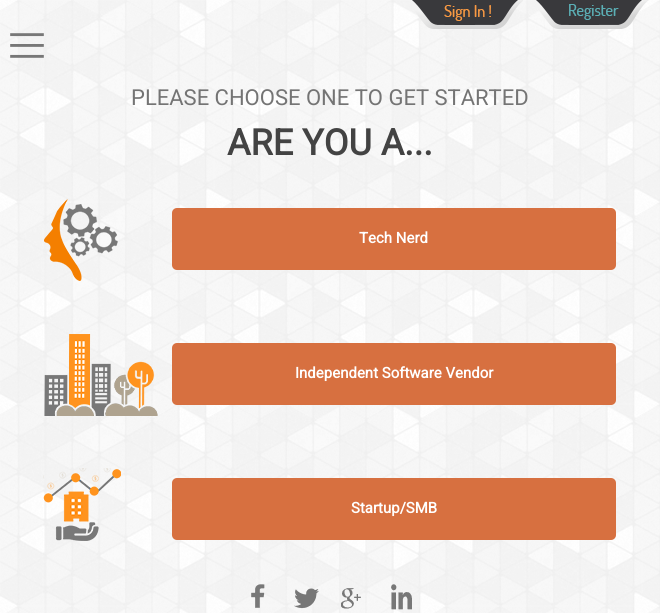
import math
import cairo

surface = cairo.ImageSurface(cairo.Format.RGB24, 660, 613)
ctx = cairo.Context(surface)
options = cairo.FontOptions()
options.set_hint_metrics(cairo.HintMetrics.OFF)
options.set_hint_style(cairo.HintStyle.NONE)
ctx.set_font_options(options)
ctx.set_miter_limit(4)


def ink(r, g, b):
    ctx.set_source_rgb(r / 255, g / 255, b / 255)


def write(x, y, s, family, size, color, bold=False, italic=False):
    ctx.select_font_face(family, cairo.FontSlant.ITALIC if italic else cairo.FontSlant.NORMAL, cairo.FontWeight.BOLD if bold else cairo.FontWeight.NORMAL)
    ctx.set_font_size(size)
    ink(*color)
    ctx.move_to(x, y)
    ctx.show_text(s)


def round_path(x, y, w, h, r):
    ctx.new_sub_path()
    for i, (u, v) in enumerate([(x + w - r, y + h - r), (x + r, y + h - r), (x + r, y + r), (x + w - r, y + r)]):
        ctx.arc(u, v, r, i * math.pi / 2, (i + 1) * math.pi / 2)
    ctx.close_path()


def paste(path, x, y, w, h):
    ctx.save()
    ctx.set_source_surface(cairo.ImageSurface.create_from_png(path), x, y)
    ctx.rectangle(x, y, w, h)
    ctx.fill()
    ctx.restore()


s1 = dict(family="Roboto", size=22, color=(116, 116, 116))
s2 = dict(family="Roboto", size=36, color=(67, 67, 67), bold=True)
s3 = dict(family="Roboto", size=15, color=(255, 255, 255), bold=True)

ink(255, 255, 255)
ctx.paint()
paste("pic1.png", 0, 0, 660, 613)
paste("pic2.png", 412, 0, 111, 29)
paste("pic3.png", 536, 0, 113, 29)
paste("pic4.png", 10, 33, 34, 25)
write(131, 105, "PLEASE CHOOSE ONE TO GET STARTED", **s1)
write(227, 155, "ARE YOU A...", **s2)
paste("pic5.png", 44, 199, 74, 82)
ink(215, 112, 64)
round_path(172, 208, 444, 62, 5)
ctx.fill()
write(359, 243, "Tech Nerd", **s3)
paste("pic6.png", 44, 334, 114, 82)
ink(215, 112, 64)
round_path(172, 343, 444, 62, 5)
ctx.fill()
write(295, 378, "Independent Software Vendor", **s3)
paste("pic7.png", 43, 468, 78, 73)
ink(215, 112, 64)
round_path(172, 478, 444, 62, 5)
ctx.fill()
write(351, 513, "Startup/SMB", **s3)
paste("pic8.png", 251, 584, 14, 24)
paste("pic9.png", 294, 588, 25, 21)
paste("pic10.png", 341, 588, 20, 21)
paste("pic11.png", 391, 584, 21, 26)
surface.write_to_png("screenshot.png")
